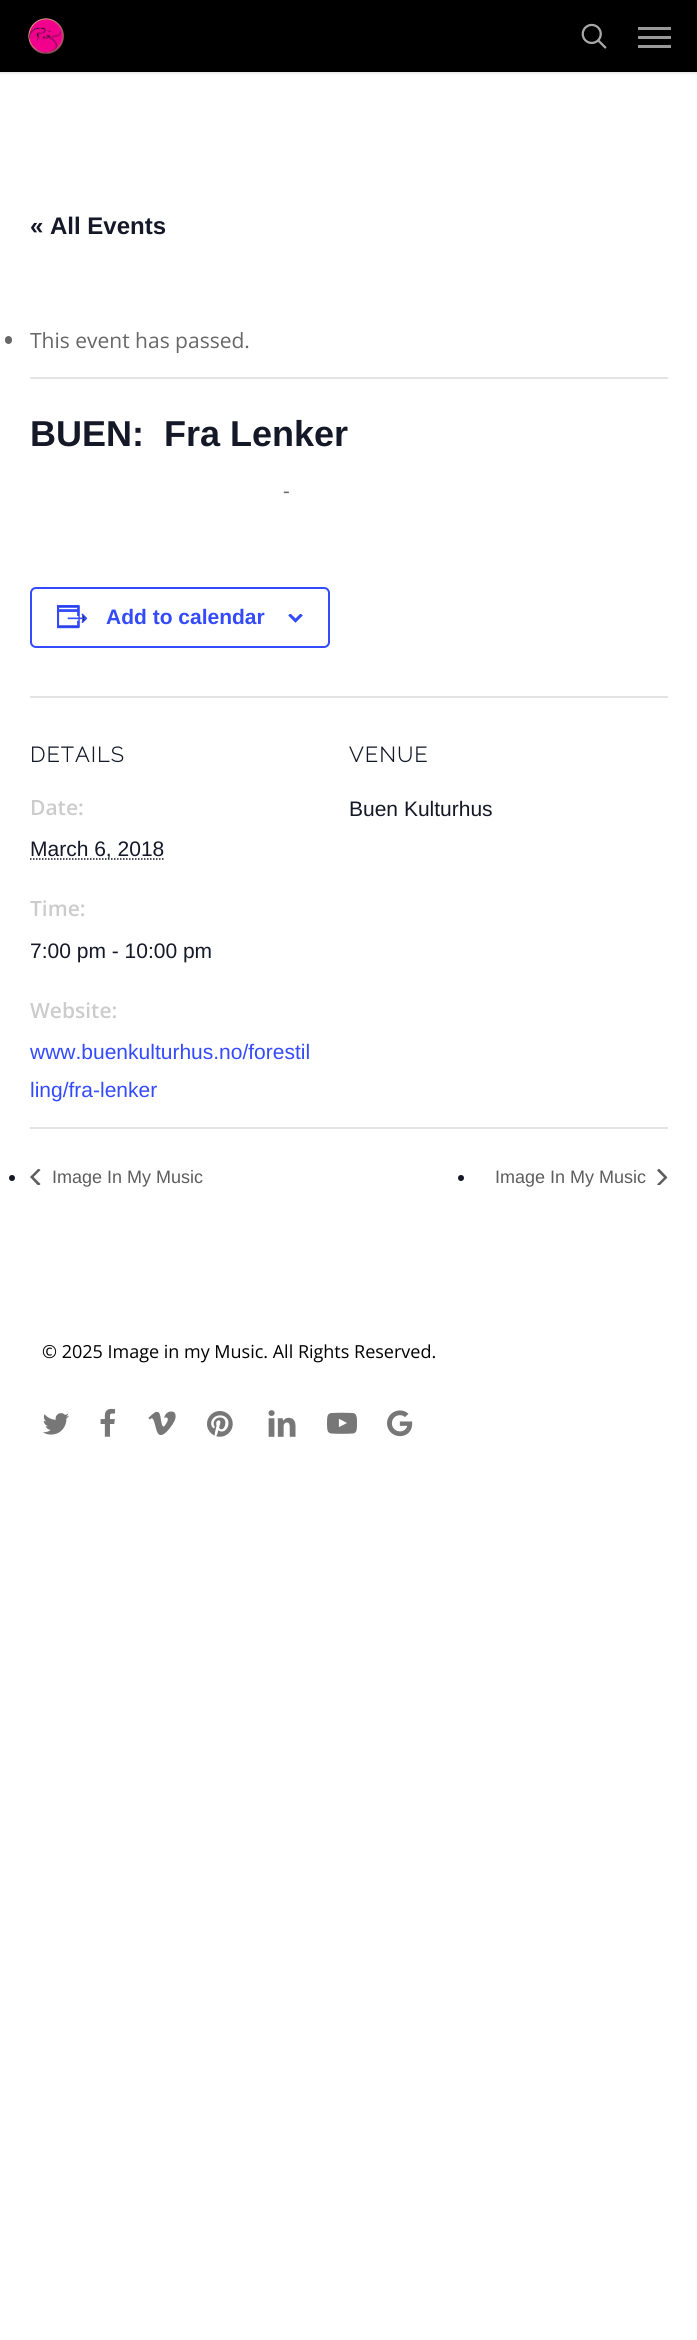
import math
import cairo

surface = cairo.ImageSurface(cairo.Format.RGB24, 697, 2340)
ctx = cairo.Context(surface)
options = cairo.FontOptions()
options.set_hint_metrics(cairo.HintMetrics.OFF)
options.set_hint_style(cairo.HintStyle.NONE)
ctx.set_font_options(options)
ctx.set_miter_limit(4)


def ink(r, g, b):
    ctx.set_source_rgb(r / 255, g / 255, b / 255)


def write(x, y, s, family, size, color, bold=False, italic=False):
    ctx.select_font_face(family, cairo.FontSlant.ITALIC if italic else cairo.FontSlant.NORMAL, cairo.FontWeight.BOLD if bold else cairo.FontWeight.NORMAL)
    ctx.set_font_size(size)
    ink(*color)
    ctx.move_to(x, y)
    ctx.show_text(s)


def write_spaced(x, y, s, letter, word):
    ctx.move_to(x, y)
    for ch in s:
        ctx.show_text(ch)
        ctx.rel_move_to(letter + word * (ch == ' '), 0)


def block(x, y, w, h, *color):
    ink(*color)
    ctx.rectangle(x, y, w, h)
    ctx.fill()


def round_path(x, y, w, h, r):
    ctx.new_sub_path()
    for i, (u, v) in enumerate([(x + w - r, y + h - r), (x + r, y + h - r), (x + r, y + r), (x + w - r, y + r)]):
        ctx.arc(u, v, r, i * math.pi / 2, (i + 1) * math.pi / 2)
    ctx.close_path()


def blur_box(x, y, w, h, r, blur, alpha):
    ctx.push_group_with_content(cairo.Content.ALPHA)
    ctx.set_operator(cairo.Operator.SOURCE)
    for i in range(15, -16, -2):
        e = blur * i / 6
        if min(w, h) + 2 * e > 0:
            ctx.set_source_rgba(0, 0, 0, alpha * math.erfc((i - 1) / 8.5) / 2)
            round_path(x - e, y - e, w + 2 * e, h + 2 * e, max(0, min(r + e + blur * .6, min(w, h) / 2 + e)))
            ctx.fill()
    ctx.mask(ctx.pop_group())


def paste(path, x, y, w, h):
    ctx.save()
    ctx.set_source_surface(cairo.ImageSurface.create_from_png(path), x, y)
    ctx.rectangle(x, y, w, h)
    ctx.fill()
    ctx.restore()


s1 = dict(family="Liberation Sans", size=24, color=(20, 24, 39), bold=True)
s2 = dict(family="Open Sans", size=21, color=(103, 103, 103))
s3 = dict(family="Liberation Sans", size=36, color=(20, 24, 39), bold=True)
s4 = dict(family="Liberation Sans", size=21, color=(51, 74, 255), bold=True)
s5 = dict(family="Open Sans SemiBold", size=21, color=(204, 204, 204))
s6 = dict(family="Liberation Sans", size=21, color=(20, 24, 39))
s7 = dict(family="Liberation Sans", size=21, color=(51, 74, 255))
s8 = dict(family="Liberation Sans", size=18, color=(93, 93, 93))
s9 = dict(family="Open Sans", size=18, color=(0, 0, 0))

ink(255, 255, 255)
ctx.paint()
ink(0, 0, 0)
blur_box(0, 0, 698, 72, 0, 2, 0.22)
block(0, 0, 697, 72, 0, 0, 0)
paste("pic1.png", 28, 18, 36, 36)
paste("pic2.png", 581, 23, 26, 26)
block(638, 27, 33, 3, 153, 153, 153)
block(638, 45, 33, 3, 153, 153, 153)
block(638, 36, 33, 3, 153, 153, 153)
write(30, 234, "« All Events", **s1)
block(30, 377, 638, 2, 228, 228, 228)
ink(103, 103, 103)
round_path(5, 336, 7, 8, 3.5)
ctx.fill()
write(30, 348, "This event has passed.", **s2)
write(30, 446, "BUEN:  Fra Lenker", **s3)
write(283, 498, "-", **s2)
round_path(31, 588, 298, 59, 5)
ink(51, 74, 255)
ctx.stroke()
paste("pic3.png", 57, 605, 31, 24)
write(106, 624, "Add to calendar", **s4)
paste("pic4.png", 288, 614, 15, 9)
block(30, 696, 638, 2, 228, 228, 228)
ctx.select_font_face("Raleway", cairo.FontSlant.NORMAL, cairo.FontWeight.BOLD)
ink(20, 24, 39)
write_spaced(30, 762, "DETAILS", 1.5, 0)
write(30, 815, "Date:", **s5)
ctx.new_path()
ctx.move_to(30, 859)
ctx.line_to(164, 859)
ink(20, 24, 39)
ctx.set_line_width(1.5)
ctx.set_dash([1.5, 1.5])
ctx.stroke()
write(30, 856, "March 6, 2018", **s6)
write(30, 916, "Time:", **s5)
write(30, 958, "7:00 pm - 10:00 pm", **s6)
write(30, 1018, "Website:", **s5)
write(30, 1059, "www.buenkulturhus.no/forestil", **s7)
write(30, 1097, "ling/fra-lenker", **s7)
ctx.select_font_face("Raleway", cairo.FontSlant.NORMAL, cairo.FontWeight.BOLD)
ink(20, 24, 39)
write_spaced(349, 762, "VENUE", 1.5, 0)
write(349, 816, "Buen Kulturhus", **s6)
block(30, 1127, 638, 2, 228, 228, 228)
ink(20, 24, 39)
ctx.new_path()
ctx.arc(12, 1178, 3, 0, 2 * math.pi)
ctx.fill()
ctx.save()
ctx.rectangle(30, 1169, 11, 16)
ctx.clip()
ink(93, 93, 93)
ctx.new_path()
ctx.move_to(40.5, 1184)
ctx.line_to(38.5, 1186)
ctx.line_to(30, 1177)
ctx.line_to(38.5, 1168.5)
ctx.line_to(40.5, 1170)
ctx.line_to(33.5, 1177)
ctx.close_path()
ctx.fill()
ctx.restore()
write(52, 1183, "Image In My Music", **s8)
ink(20, 24, 39)
ctx.new_path()
ctx.arc(461, 1178, 3, 0, 2 * math.pi)
ctx.fill()
write(495, 1183, "Image In My Music", **s8)
ctx.save()
ctx.rectangle(657, 1169, 11, 16)
ctx.clip()
ctx.new_path()
ctx.move_to(657, 1170.5)
ctx.line_to(659, 1168.5)
ctx.line_to(667.5, 1177.5)
ctx.line_to(659, 1186)
ctx.line_to(657, 1184.5)
ctx.line_to(664, 1177.5)
ctx.close_path()
ctx.fill()
ctx.restore()
write(42, 1358, "© 2025 Image in my Music. All Rights Reserved.", **s9)
paste("pic5.png", 43, 1413, 26, 22)
paste("pic6.png", 100, 1408, 16, 29)
paste("pic7.png", 148, 1411, 28, 25)
paste("pic8.png", 207, 1411, 26, 26)
paste("pic9.png", 268, 1410, 28, 27)
paste("pic10.png", 327, 1412, 30, 22)
paste("pic11.png", 387, 1410, 26, 27)
surface.write_to_png("screenshot.png")
